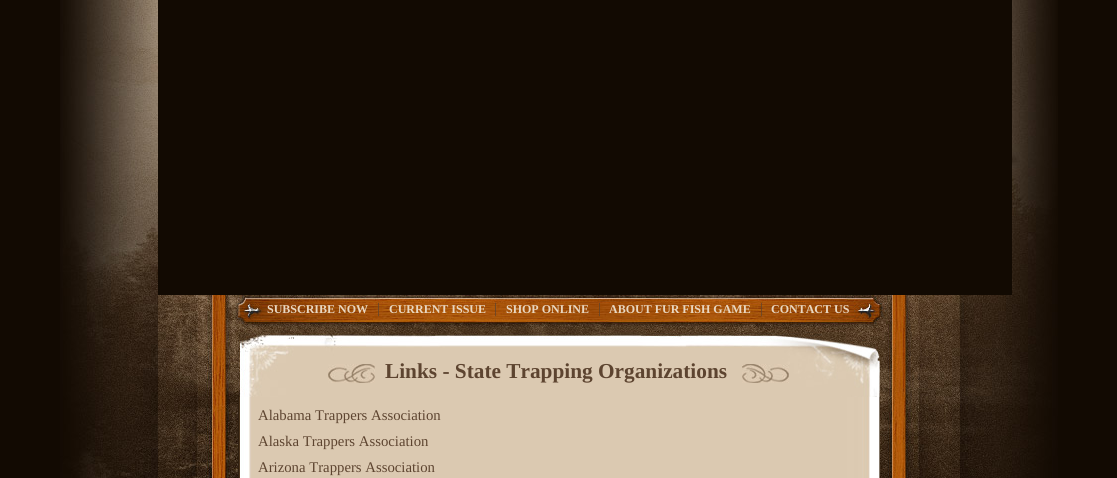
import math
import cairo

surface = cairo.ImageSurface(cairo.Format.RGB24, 1117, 478)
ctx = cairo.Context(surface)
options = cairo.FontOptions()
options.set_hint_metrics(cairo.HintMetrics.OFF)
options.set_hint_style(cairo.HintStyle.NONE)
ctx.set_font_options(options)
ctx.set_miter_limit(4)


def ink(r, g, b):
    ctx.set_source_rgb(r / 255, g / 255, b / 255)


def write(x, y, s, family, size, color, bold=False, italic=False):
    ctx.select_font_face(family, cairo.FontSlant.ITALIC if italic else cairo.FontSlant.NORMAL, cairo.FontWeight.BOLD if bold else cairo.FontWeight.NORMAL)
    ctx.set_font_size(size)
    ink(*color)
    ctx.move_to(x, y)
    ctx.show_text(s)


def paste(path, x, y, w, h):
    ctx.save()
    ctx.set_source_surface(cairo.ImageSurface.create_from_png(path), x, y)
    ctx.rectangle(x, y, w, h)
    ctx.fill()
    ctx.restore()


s1 = dict(family="Liberation Serif", size=12, color=(233, 215, 193), bold=True)
s2 = dict(family="Liberation Serif", size=14.75, color=(93, 68, 48))
s3 = dict(family="Liberation Serif", size=21.3, color=(93, 68, 48), bold=True)

ink(18, 10, 2)
ctx.paint()
paste("pic1.png", 60, 0, 98, 478)
paste("pic2.png", 158, 295, 854, 29)
write(267, 313, "SUBSCRIBE NOW", **s1)
write(377, 313, "|", **s2)
write(389, 313, "CURRENT ISSUE", **s1)
write(494, 313, "|", **s2)
write(506, 313, "SHOP ONLINE", **s1)
write(598, 313, "|", **s2)
write(609, 313, "ABOUT FUR FISH GAME", **s1)
write(760, 313, "|", **s2)
write(771, 313, "CONTACT US", **s1)
paste("pic3.png", 158, 324, 80, 154)
paste("pic4.png", 238, 397, 642, 81)
paste("pic5.png", 238, 324, 642, 73)
paste("pic6.png", 328, 364, 47, 19)
write(385, 378, "Links - State Trapping Organizations", **s3)
paste("pic7.png", 742, 364, 47, 19)
write(258, 420, "Alabama Trappers Association", **s2)
write(258, 446, "Alaska Trappers Association", **s2)
write(258, 472, "Arizona Trappers Association", **s2)
paste("pic8.png", 880, 324, 132, 154)
paste("pic9.png", 1012, 0, 46, 478)
surface.write_to_png("screenshot.png")
